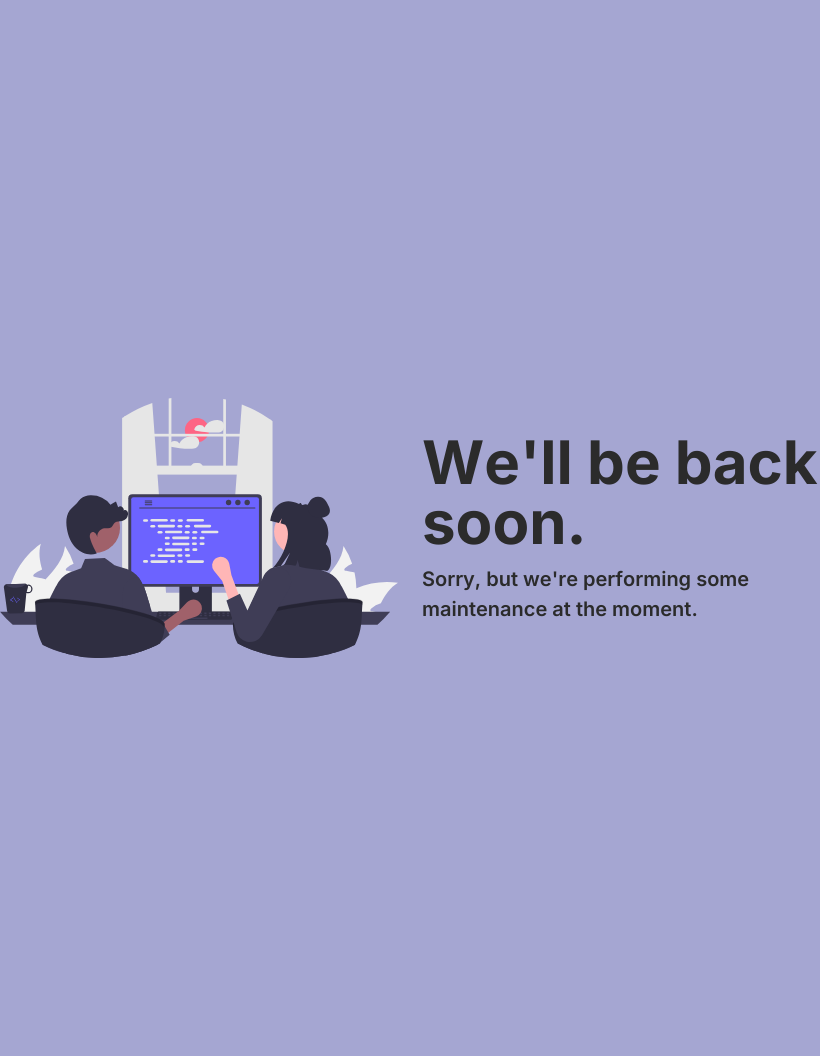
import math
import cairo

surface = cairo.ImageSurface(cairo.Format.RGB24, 820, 1056)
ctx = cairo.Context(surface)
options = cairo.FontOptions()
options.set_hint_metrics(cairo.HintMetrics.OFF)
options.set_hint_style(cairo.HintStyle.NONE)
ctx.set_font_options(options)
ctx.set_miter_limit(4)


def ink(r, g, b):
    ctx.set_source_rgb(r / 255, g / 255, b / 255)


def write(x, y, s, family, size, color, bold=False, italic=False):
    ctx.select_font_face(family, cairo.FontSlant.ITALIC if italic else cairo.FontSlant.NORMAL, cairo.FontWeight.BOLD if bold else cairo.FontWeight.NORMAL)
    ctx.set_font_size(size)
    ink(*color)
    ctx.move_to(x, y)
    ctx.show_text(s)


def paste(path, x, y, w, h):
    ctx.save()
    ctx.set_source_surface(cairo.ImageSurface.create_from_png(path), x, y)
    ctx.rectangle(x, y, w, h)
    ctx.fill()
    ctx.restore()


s1 = dict(family="Inter", size=60, color=(43, 43, 43), bold=True)
s2 = dict(family="Inter SemiBold", size=20, color=(43, 43, 43))

ink(165, 166, 210)
ctx.paint()
paste("pic1.png", 0, 398, 398, 260)
write(422, 484, "We'll be back", **s1)
write(422, 544, "soon.", **s1)
write(422, 586, "Sorry, but we're performing some", **s2)
write(422, 616, "maintenance at the moment.", **s2)
surface.write_to_png("screenshot.png")
